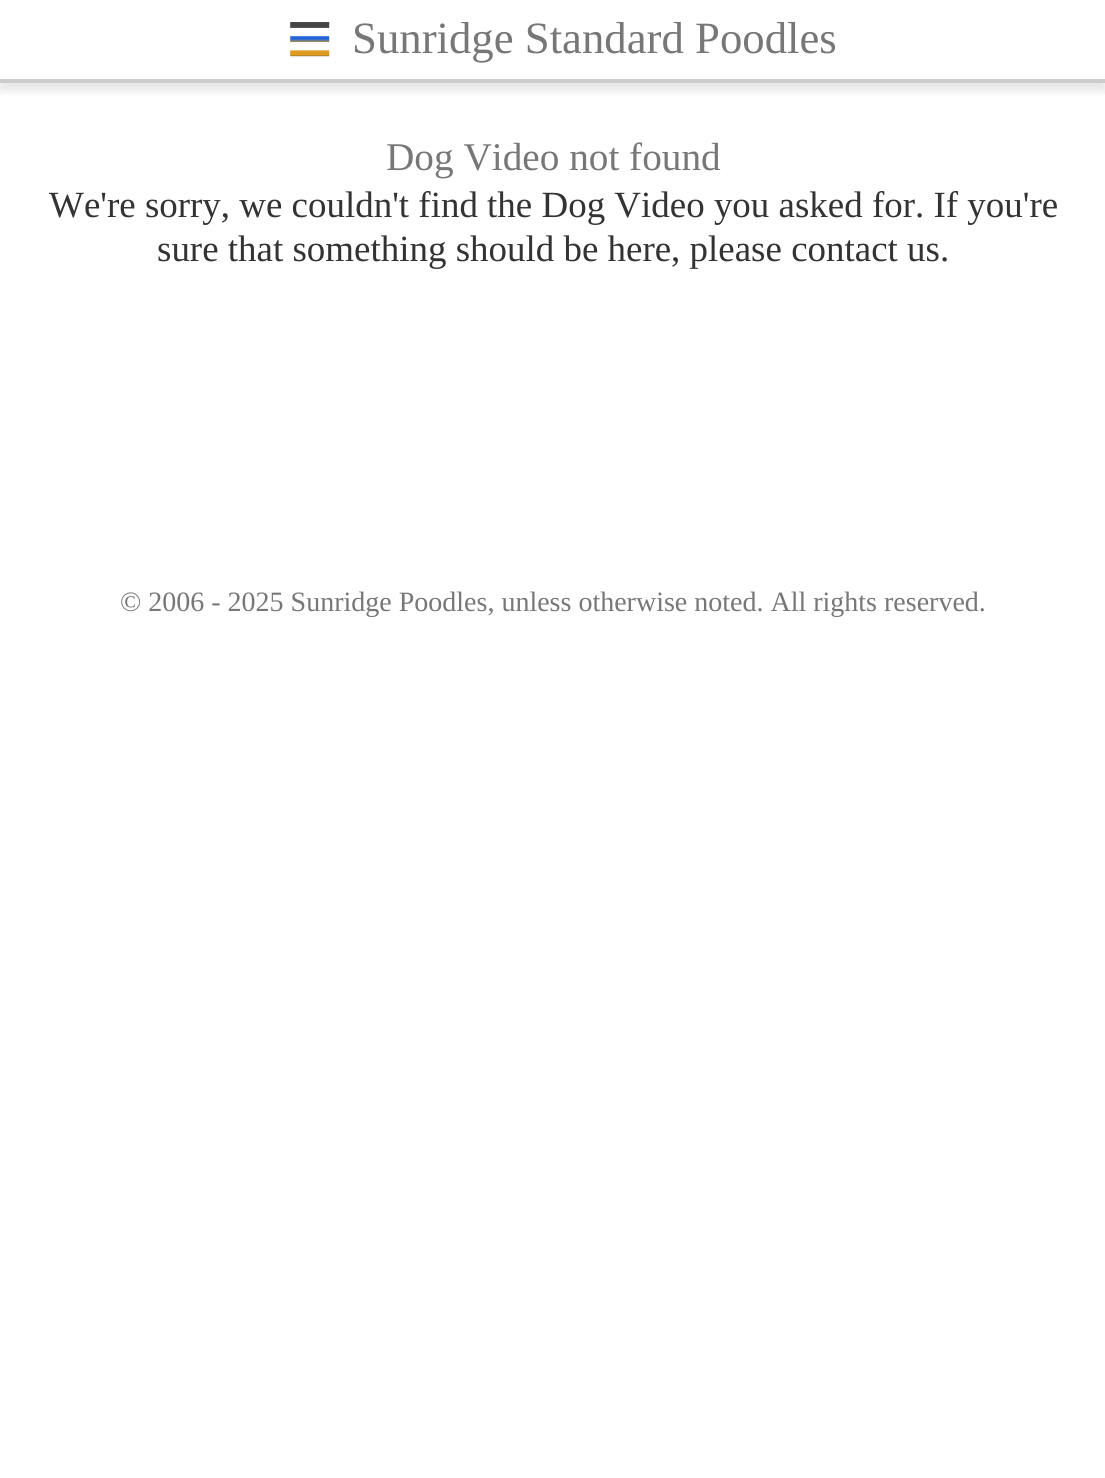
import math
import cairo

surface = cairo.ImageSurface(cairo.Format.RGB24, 1105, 1478)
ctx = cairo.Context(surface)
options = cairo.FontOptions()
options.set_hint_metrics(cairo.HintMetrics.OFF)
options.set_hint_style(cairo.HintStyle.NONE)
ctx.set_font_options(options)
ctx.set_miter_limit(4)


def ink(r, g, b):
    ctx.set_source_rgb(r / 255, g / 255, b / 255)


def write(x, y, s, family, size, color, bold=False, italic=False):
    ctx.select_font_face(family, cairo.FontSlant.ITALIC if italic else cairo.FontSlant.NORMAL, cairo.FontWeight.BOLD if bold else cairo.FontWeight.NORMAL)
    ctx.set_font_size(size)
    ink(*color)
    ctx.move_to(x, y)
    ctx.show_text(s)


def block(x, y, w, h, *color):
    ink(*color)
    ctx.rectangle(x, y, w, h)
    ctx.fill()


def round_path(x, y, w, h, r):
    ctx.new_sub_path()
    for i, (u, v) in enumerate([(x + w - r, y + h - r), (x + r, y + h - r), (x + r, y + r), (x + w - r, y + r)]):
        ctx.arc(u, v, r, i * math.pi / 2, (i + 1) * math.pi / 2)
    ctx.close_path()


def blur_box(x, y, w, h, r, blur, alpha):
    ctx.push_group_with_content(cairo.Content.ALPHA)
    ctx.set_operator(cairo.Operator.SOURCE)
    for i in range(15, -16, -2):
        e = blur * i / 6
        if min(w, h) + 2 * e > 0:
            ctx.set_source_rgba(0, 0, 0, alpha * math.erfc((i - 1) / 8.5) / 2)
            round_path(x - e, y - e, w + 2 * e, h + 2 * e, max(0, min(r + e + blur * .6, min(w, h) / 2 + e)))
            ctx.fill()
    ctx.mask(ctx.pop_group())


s1 = dict(family="Liberation Serif", size=44.75, color=(119, 119, 119))
s2 = dict(family="Liberation Serif", size=39.25, color=(119, 119, 119))
s3 = dict(family="Liberation Serif", size=36.95, color=(51, 51, 51))
s4 = dict(family="Liberation Serif", size=28, color=(119, 119, 119))

ink(255, 255, 255)
ctx.paint()
ctx.save()
ctx.rectangle(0, 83, 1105, 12)
ctx.clip()
ink(0, 0, 0)
blur_box(0, 9, 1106, 82, 0, 4.5, 0.1)
ctx.restore()
block(0, 79, 1105, 4, 204, 204, 204)
ctx.select_font_face("Liberation Serif", cairo.FontSlant.NORMAL, cairo.FontWeight.BOLD)
ctx.set_font_size(84)
gradient = cairo.LinearGradient(310, 78, 310, 0)
gradient.add_color_stop_rgba(0.25, 0.267, 0.267, 0.267, 1)
gradient.add_color_stop_rgba(0.3, 0.875, 0.612, 0.125, 1)
gradient.add_color_stop_rgba(0.45, 0.875, 0.612, 0.125, 1)
gradient.add_color_stop_rgba(0.5, 0.133, 0.4, 0.867, 1)
gradient.add_color_stop_rgba(0.55, 0.133, 0.4, 0.867, 1)
gradient.add_color_stop_rgba(0.6, 0.267, 0.267, 0.267, 1)
ctx.set_source(gradient)
ctx.move_to(286, 67)
ctx.show_text("≡")
write(352, 53, "Sunridge Standard Poodles", **s1)
write(386, 170, "Dog Video not found", **s2)
write(49, 217, "We're sorry, we couldn't find the Dog Video you asked for. If you're", **s3)
write(157, 261, "sure that something should be here, please contact us.", **s3)
write(120, 611, "© 2006 - 2025 Sunridge Poodles, unless otherwise noted. All rights reserved.", **s4)
surface.write_to_png("screenshot.png")
